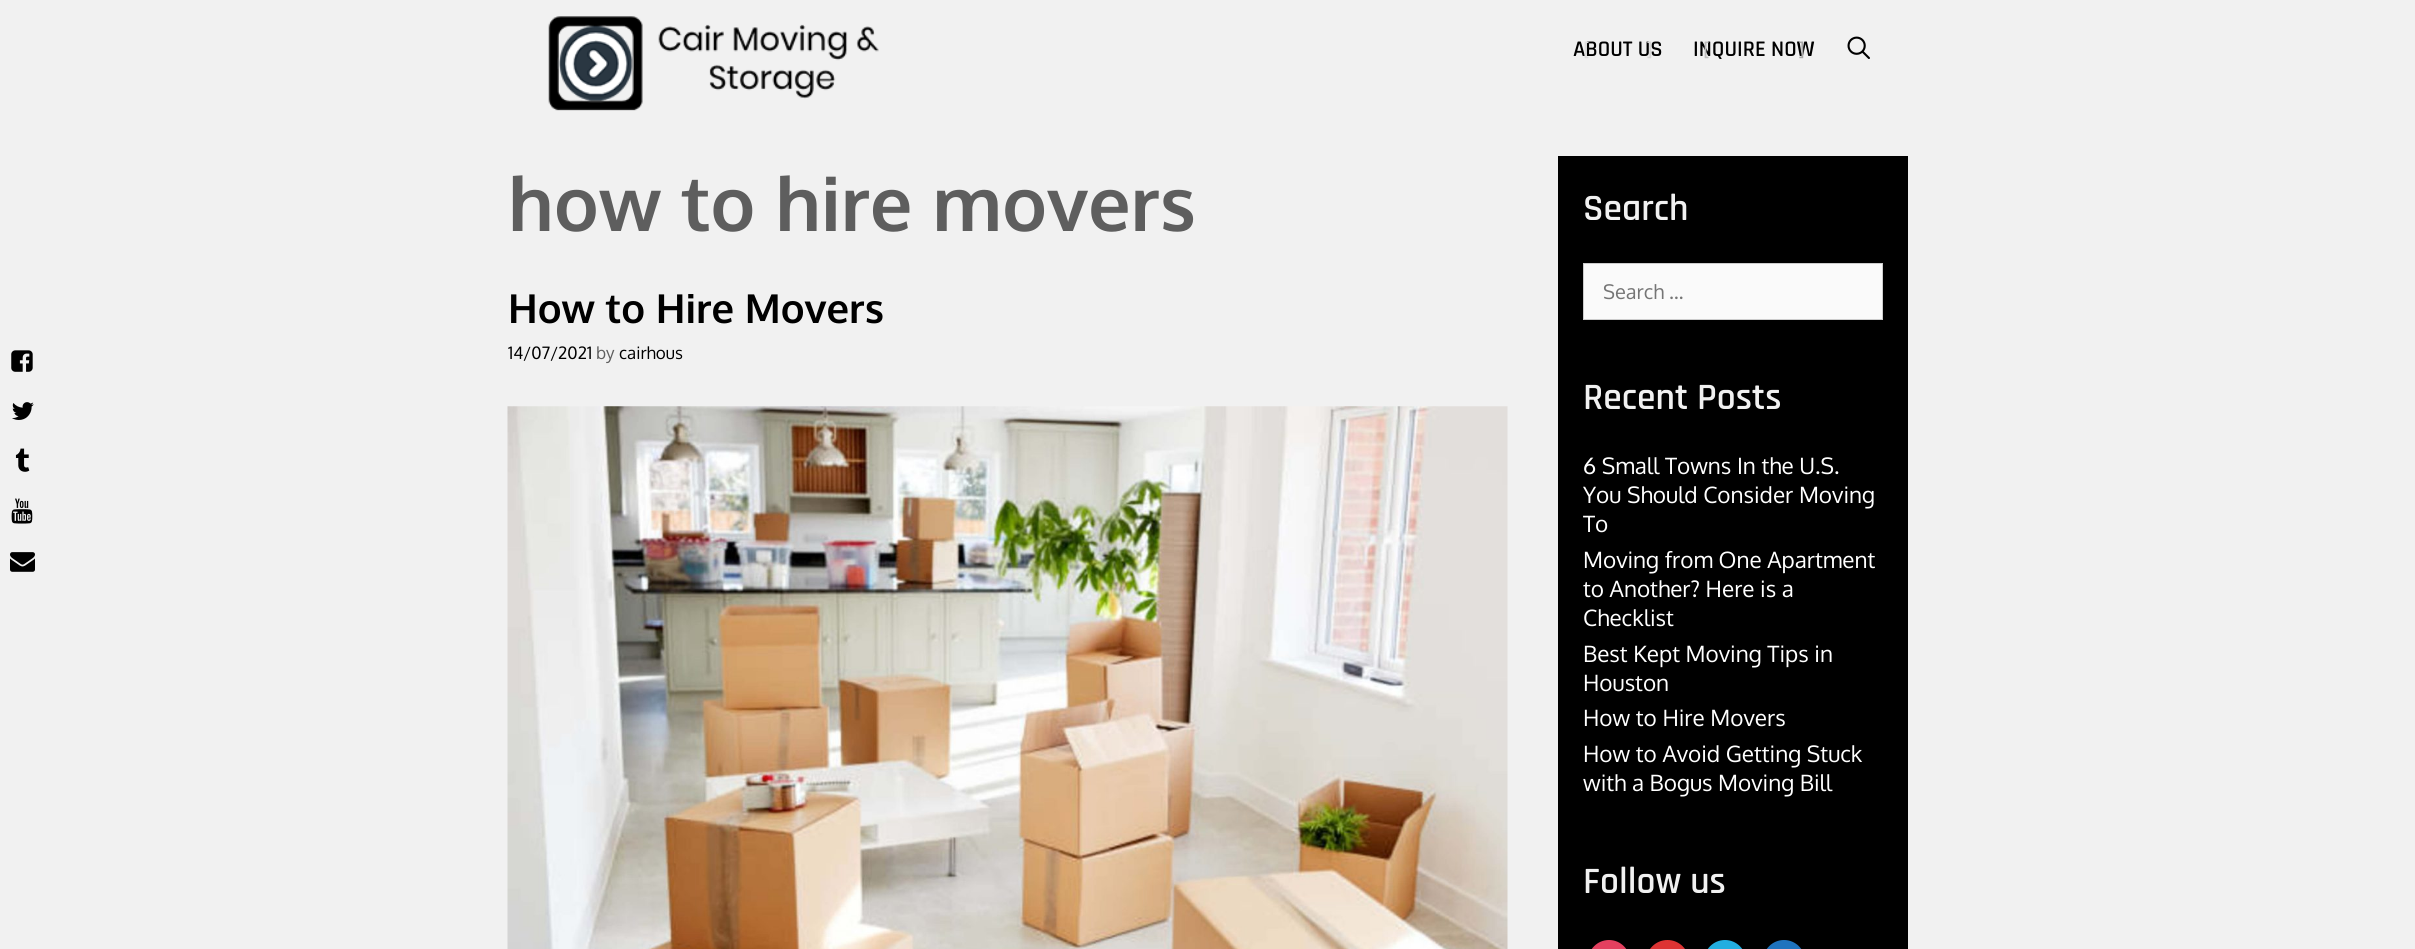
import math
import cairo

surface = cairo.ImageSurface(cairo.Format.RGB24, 2415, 949)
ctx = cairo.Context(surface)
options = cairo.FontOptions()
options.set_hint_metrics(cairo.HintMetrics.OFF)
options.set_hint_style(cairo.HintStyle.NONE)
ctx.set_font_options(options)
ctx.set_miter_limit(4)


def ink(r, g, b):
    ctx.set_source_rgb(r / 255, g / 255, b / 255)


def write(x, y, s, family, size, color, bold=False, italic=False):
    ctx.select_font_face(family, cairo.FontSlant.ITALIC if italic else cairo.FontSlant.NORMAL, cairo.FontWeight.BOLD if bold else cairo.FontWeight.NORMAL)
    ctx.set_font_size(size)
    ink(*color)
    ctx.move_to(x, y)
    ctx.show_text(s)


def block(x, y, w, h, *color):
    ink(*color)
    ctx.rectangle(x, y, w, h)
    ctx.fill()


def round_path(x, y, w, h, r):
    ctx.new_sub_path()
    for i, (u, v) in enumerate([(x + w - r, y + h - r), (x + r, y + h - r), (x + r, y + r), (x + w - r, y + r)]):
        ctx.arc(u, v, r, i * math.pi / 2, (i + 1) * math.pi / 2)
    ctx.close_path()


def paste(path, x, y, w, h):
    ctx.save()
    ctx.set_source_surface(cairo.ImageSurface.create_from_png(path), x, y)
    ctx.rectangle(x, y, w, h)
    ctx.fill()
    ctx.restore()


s1 = dict(family="Rajdhani SemiBold", size=22.5, color=(0, 0, 0))
s2 = dict(family="Rajdhani SemiBold", size=22.5, color=(221, 221, 221))
s3 = dict(family="Rajdhani SemiBold", size=22.5, color=(213, 213, 213))
s4 = dict(family="Rajdhani SemiBold", size=22.5, color=(189, 189, 189))
s5 = dict(family="Rajdhani SemiBold", size=22.5, color=(168, 168, 168))
s6 = dict(family="Oxygen", size=75, color=(94, 94, 94), bold=True)
s7 = dict(family="Oxygen", size=40, color=(0, 0, 0), bold=True)
s8 = dict(family="Oxygen", size=17, color=(0, 0, 0))
s9 = dict(family="Oxygen", size=17, color=(94, 94, 94))
s10 = dict(family="Rajdhani SemiBold", size=37.5, color=(241, 241, 241))
s11 = dict(family="Oxygen", size=20, color=(117, 117, 117))
s12 = dict(family="Oxygen", size=22.5, color=(255, 255, 255))

ink(241, 241, 241)
ctx.paint()
paste("pic1.png", 548, 16, 331, 95)
write(1573, 56, "ABOUT US", **s1)
write(1583, 56, "[", **s2)
write(1646, 56, "]", **s3)
write(1693, 56, "INQUIRE NOW", **s1)
write(1703, 56, "[", **s4)
write(1798, 56, "]", **s5)
paste("pic2.png", 1847, 36, 23, 23)
paste("pic3.png", 11, 350, 22, 22)
paste("pic4.png", 12, 402, 22, 18)
paste("pic5.png", 15, 448, 15, 24)
paste("pic6.png", 11, 498, 22, 26)
paste("pic7.png", 10, 552, 25, 20)
write(508, 231, "how to hire movers", **s6)
write(508, 323, "How to Hire Movers", **s7)
write(508, 359, "14/07/2021", **s8)
write(596, 359, "by", **s9)
write(619, 359, "cairhous", **s8)
paste("pic8.png", 507, 406, 1001, 543)
block(1558, 156, 350, 793, 0, 0, 0)
write(1583, 220, "Search", **s10)
ink(250, 250, 250)
ctx.rectangle(1583.5, 263.5, 299, 56)
ctx.fill_preserve()
ink(204, 204, 204)
ctx.set_line_width(1)
ctx.stroke()
write(1603, 299, "Search …", **s11)
write(1583, 409, "Recent Posts", **s10)
write(1583, 474, "6 Small Towns In the U.S.", **s12)
write(1583, 503, "You Should Consider Moving", **s12)
write(1583, 532, "To", **s12)
write(1583, 568, "Moving from One Apartment", **s12)
write(1583, 597, "to Another? Here is a", **s12)
write(1583, 626, "Checklist", **s12)
write(1583, 662, "Best Kept Moving Tips in", **s12)
write(1583, 691, "Houston", **s12)
write(1583, 726, "How to Hire Movers", **s12)
write(1583, 762, "How to Avoid Getting Stuck", **s12)
write(1583, 791, "with a Bogus Moving Bill", **s12)
write(1583, 893, "Follow us", **s10)
ink(228, 64, 95)
round_path(1588, 940, 42, 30, 21)
ctx.fill()
ink(221, 51, 51)
round_path(1646, 940, 43, 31, 21.5)
ctx.fill()
ink(35, 174, 224)
round_path(1704, 940, 42, 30, 21)
ctx.fill()
ink(30, 115, 190)
round_path(1763, 940, 42, 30, 21)
ctx.fill()
surface.write_to_png("screenshot.png")
